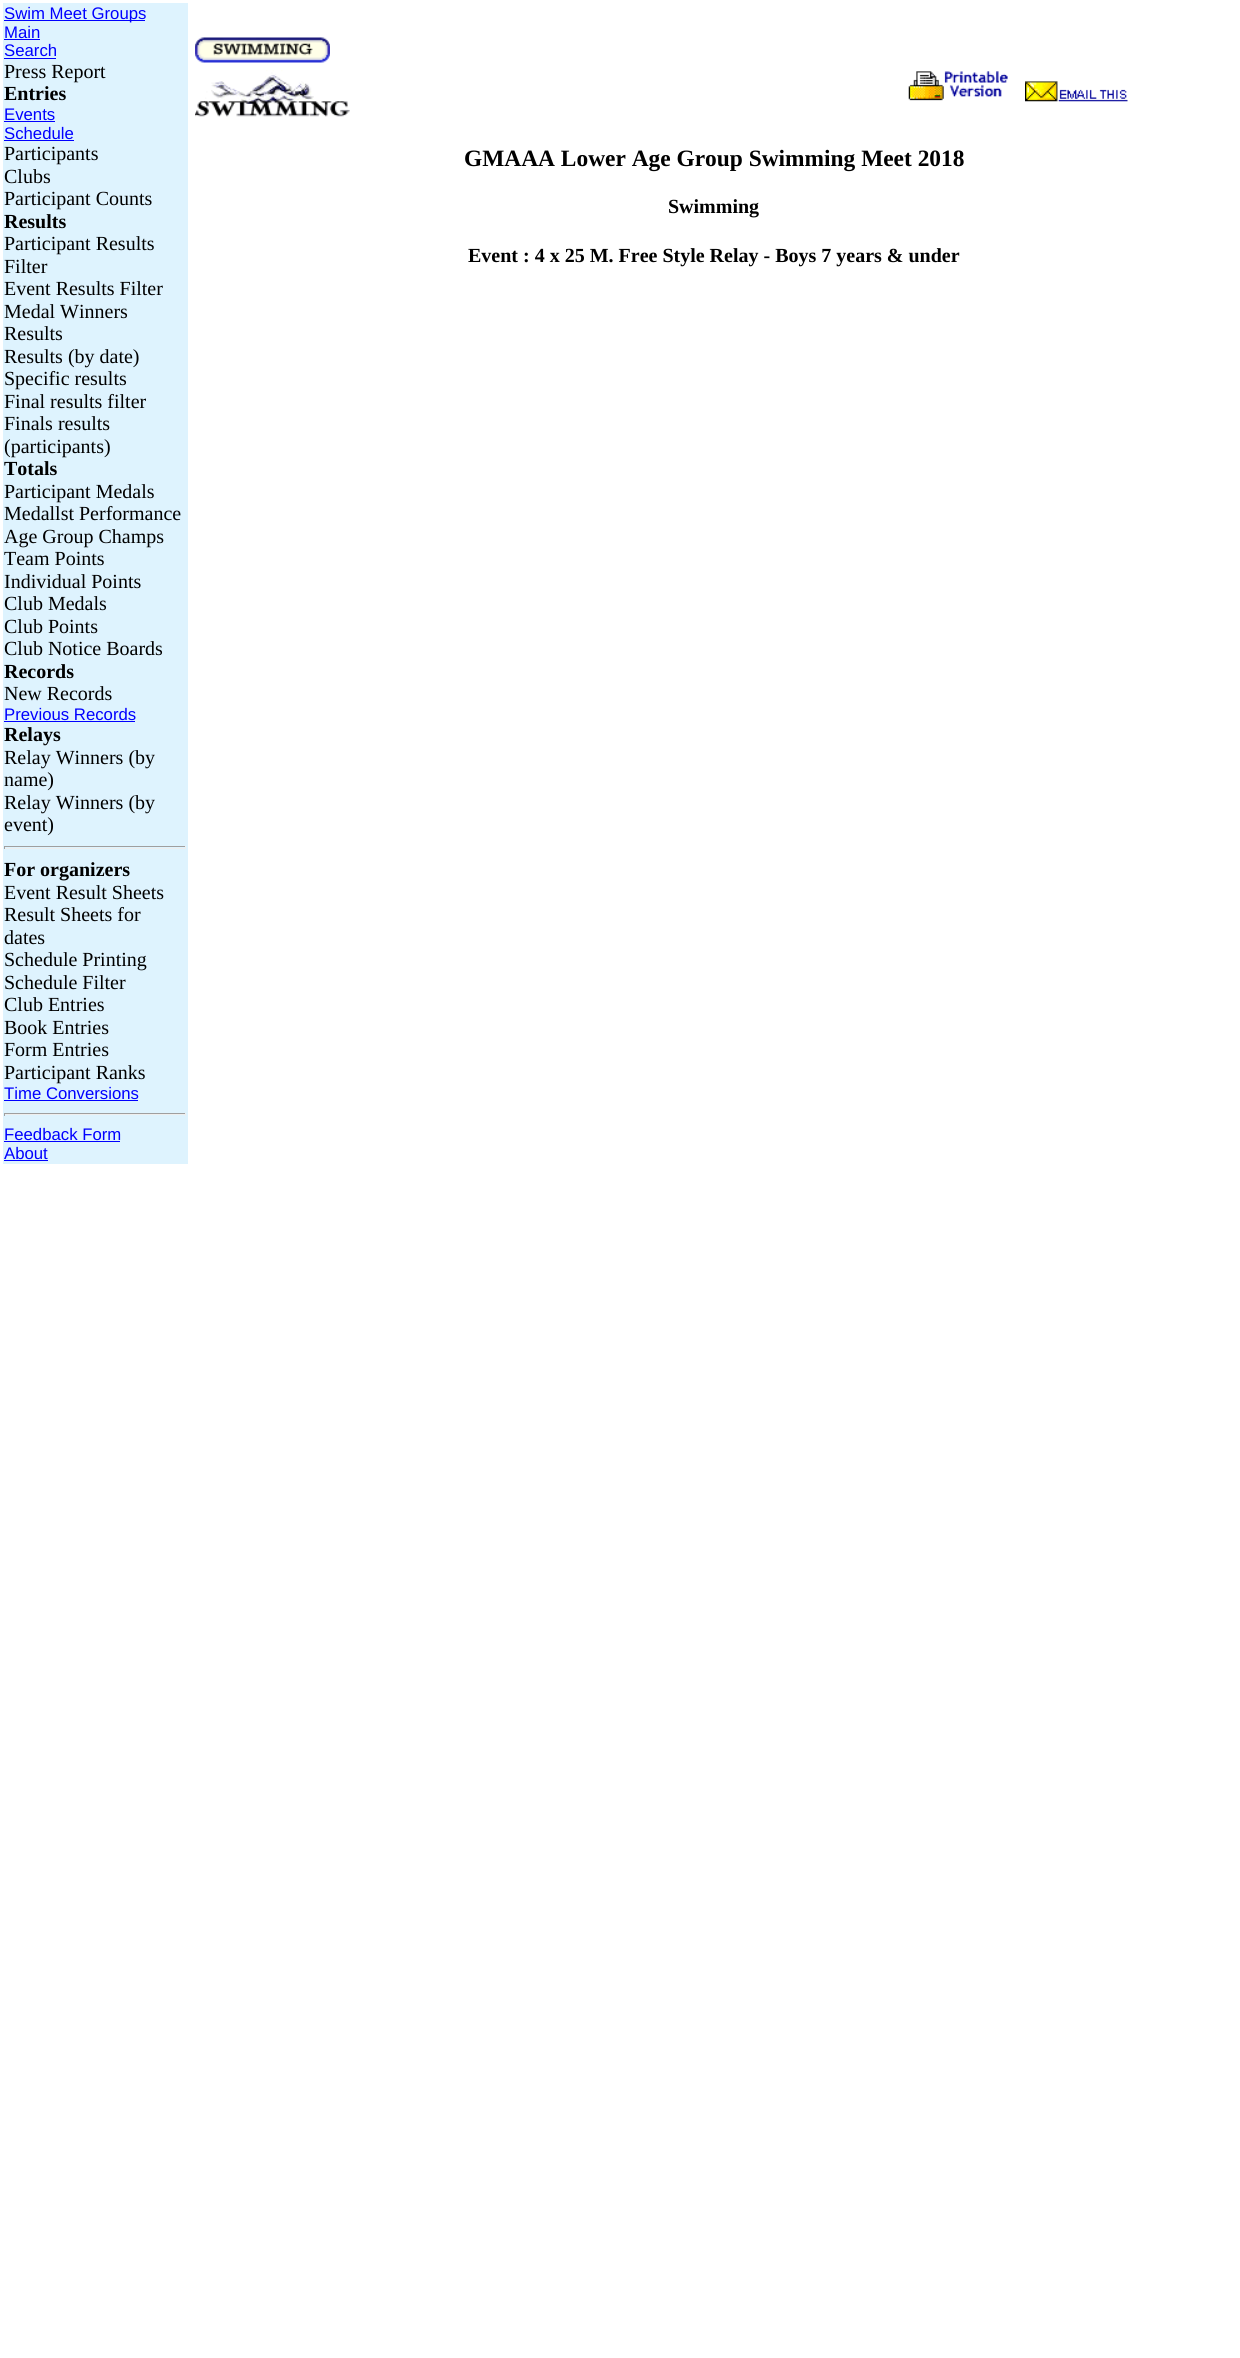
import math
import cairo

surface = cairo.ImageSurface(cairo.Format.RGB24, 1240, 2358)
ctx = cairo.Context(surface)
options = cairo.FontOptions()
options.set_hint_metrics(cairo.HintMetrics.OFF)
options.set_hint_style(cairo.HintStyle.NONE)
ctx.set_font_options(options)
ctx.set_miter_limit(4)


def ink(r, g, b):
    ctx.set_source_rgb(r / 255, g / 255, b / 255)


def write(x, y, s, family, size, color, bold=False, italic=False):
    ctx.select_font_face(family, cairo.FontSlant.ITALIC if italic else cairo.FontSlant.NORMAL, cairo.FontWeight.BOLD if bold else cairo.FontWeight.NORMAL)
    ctx.set_font_size(size)
    ink(*color)
    ctx.move_to(x, y)
    ctx.show_text(s)


def block(x, y, w, h, *color):
    ink(*color)
    ctx.rectangle(x, y, w, h)
    ctx.fill()


def paste(path, x, y, w, h):
    ctx.save()
    ctx.set_source_surface(cairo.ImageSurface.create_from_png(path), x, y)
    ctx.rectangle(x, y, w, h)
    ctx.fill()
    ctx.restore()


s1 = dict(family="Liberation Sans", size=16.75, color=(0, 0, 255))
s2 = dict(family="Liberation Serif", size=20, color=(0, 0, 0))
s3 = dict(family="Liberation Serif", size=20, color=(0, 0, 0), bold=True)
s4 = dict(family="Liberation Serif", size=23.4, color=(0, 0, 0), bold=True)

ink(255, 255, 255)
ctx.paint()
block(3, 3, 185, 1161, 222, 243, 254)
block(4, 20, 141, 1, 0, 0, 255)
write(4, 19, "Swim Meet Groups", **s1)
write(4, 38, "Main", **s1)
block(4, 39, 36, 1, 0, 0, 255)
write(4, 56, "Search", **s1)
block(4, 58, 52, 1, 0, 0, 255)
write(4, 78, "Press Report", **s2)
write(4, 100, "Entries", **s3)
write(4, 120, "Events", **s1)
block(4, 121, 51, 1, 0, 0, 255)
write(4, 139, "Schedule", **s1)
block(4, 140, 70, 1, 0, 0, 255)
write(4, 160, "Participants", **s2)
write(4, 183, "Clubs", **s2)
write(4, 205, "Participant Counts", **s2)
write(4, 228, "Results", **s3)
write(4, 250, "Participant Results", **s2)
write(4, 273, "Filter", **s2)
write(4, 295, "Event Results Filter", **s2)
write(4, 318, "Medal Winners", **s2)
write(4, 340, "Results", **s2)
write(4, 363, "Results (by date)", **s2)
write(4, 385, "Specific results", **s2)
write(4, 408, "Final results filter", **s2)
write(4, 430, "Finals results", **s2)
write(4, 453, "(participants)", **s2)
write(4, 475, "Totals", **s3)
write(4, 498, "Participant Medals", **s2)
write(4, 520, "Medallst Performance", **s2)
write(4, 543, "Age Group Champs", **s2)
write(4, 565, "Team Points", **s2)
write(4, 588, "Individual Points", **s2)
write(4, 610, "Club Medals", **s2)
write(4, 633, "Club Points", **s2)
write(4, 655, "Club Notice Boards", **s2)
write(4, 678, "Records", **s3)
write(4, 700, "New Records", **s2)
write(4, 720, "Previous Records", **s1)
block(4, 721, 131, 1, 0, 0, 255)
write(4, 741, "Relays", **s3)
write(4, 764, "Relay Winners (by", **s2)
write(4, 786, "name)", **s2)
write(4, 809, "Relay Winners (by", **s2)
write(4, 831, "event)", **s2)
block(4, 846, 182, 1, 159, 159, 159)
block(185, 846, 1, 3, 238, 238, 238)
block(4, 848, 182, 1, 238, 238, 238)
block(4, 846, 1, 3, 159, 159, 159)
write(4, 876, "For organizers", **s3)
write(4, 899, "Event Result Sheets", **s2)
write(4, 921, "Result Sheets for", **s2)
write(4, 944, "dates", **s2)
write(4, 966, "Schedule Printing", **s2)
write(4, 989, "Schedule Filter", **s2)
write(4, 1011, "Club Entries", **s2)
write(4, 1034, "Book Entries", **s2)
write(4, 1056, "Form Entries", **s2)
write(4, 1079, "Participant Ranks", **s2)
write(4, 1099, "Time Conversions", **s1)
block(4, 1100, 134, 1, 0, 0, 255)
block(4, 1113, 182, 1, 159, 159, 159)
block(185, 1113, 1, 3, 238, 238, 238)
block(4, 1114, 182, 1, 238, 238, 238)
block(4, 1113, 1, 3, 159, 159, 159)
write(4, 1140, "Feedback Form", **s1)
block(4, 1141, 116, 1, 0, 0, 255)
write(4, 1159, "About", **s1)
block(4, 1160, 44, 1, 0, 0, 255)
paste("pic1.png", 195, 37, 135, 26)
paste("pic2.png", 195, 70, 155, 47)
paste("pic3.png", 908, 71, 100, 30)
paste("pic4.png", 1025, 81, 103, 21)
write(464, 166, "GMAAA Lower Age Group Swimming Meet 2018", **s4)
write(668, 213, "Swimming", **s3)
write(468, 262, "Event : 4 x 25 M. Free Style Relay - Boys 7 years & under", **s3)
surface.write_to_png("screenshot.png")
